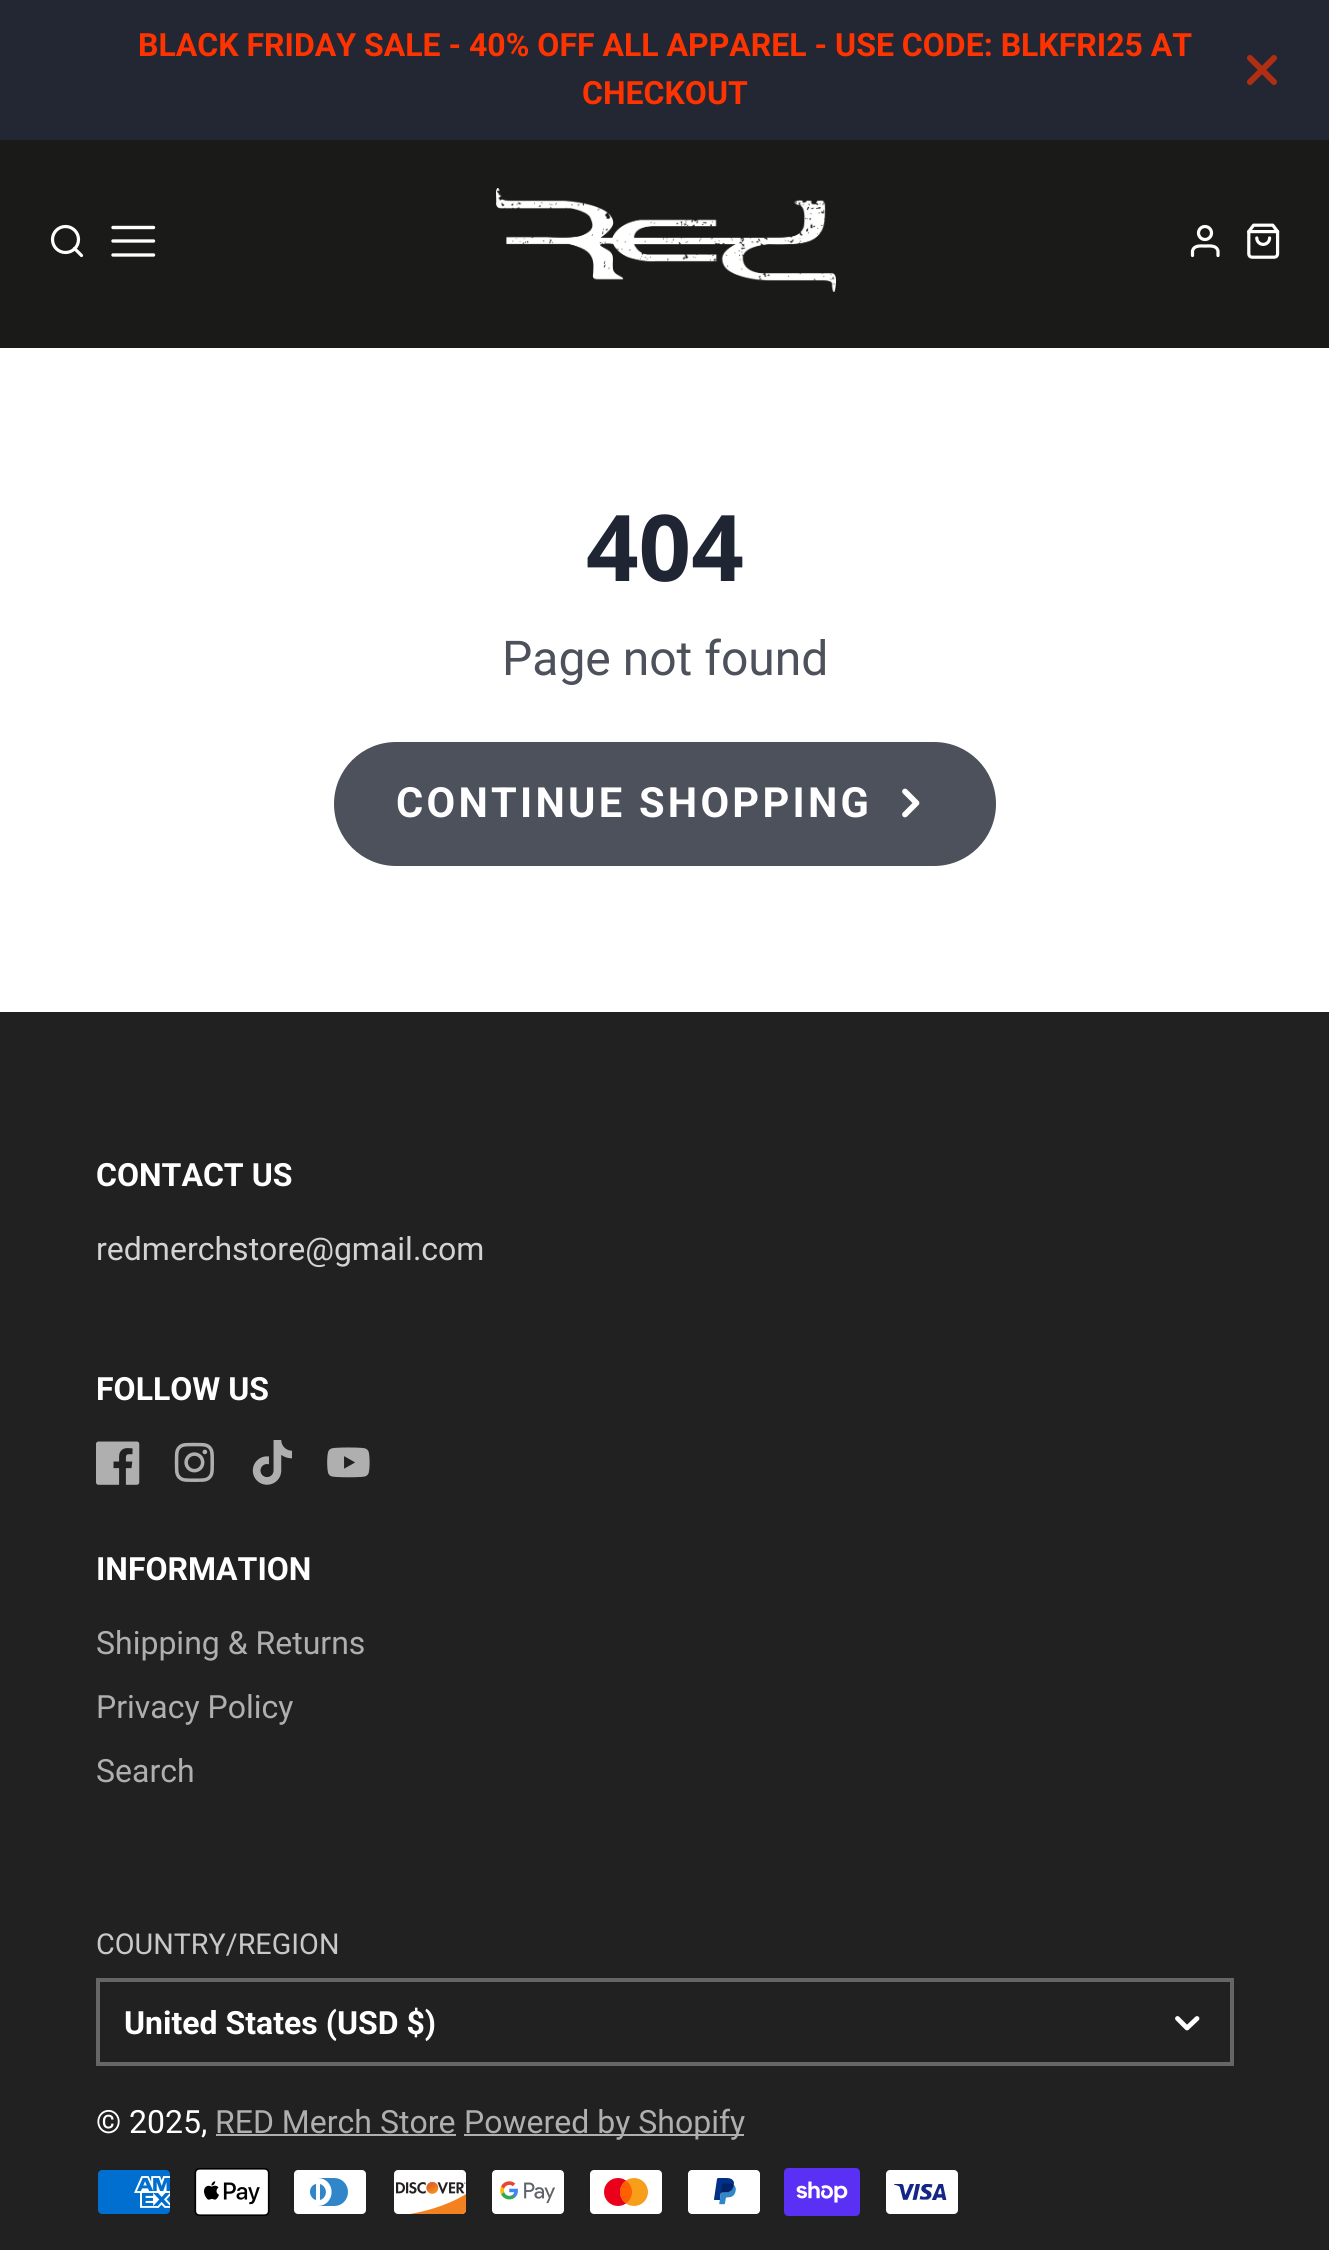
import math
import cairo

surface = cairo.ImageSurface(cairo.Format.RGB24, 1329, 2250)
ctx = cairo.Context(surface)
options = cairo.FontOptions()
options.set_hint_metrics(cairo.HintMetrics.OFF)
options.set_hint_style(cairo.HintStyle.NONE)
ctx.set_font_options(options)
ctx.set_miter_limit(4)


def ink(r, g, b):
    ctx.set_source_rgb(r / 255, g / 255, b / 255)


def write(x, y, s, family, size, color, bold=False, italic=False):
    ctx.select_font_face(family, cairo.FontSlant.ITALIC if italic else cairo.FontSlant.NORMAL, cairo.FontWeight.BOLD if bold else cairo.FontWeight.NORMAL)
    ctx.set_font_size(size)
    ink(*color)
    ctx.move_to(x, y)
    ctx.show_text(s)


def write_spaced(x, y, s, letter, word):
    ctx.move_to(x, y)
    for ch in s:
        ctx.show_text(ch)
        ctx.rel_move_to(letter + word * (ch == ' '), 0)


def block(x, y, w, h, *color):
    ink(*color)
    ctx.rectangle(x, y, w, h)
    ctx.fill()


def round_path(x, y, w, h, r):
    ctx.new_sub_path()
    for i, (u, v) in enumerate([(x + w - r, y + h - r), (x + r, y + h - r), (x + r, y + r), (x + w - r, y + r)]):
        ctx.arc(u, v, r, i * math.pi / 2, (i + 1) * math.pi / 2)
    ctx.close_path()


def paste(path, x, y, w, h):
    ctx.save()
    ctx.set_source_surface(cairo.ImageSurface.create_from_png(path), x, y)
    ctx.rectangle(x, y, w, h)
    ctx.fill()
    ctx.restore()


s1 = dict(family="Roboto", size=32, color=(255, 51, 0), bold=True)
s2 = dict(family="Open Sans", size=92, color=(31, 37, 50), bold=True)
s3 = dict(family="Roboto", size=48, color=(76, 81, 91))
s4 = dict(family="Roboto", size=32, color=(255, 255, 255), bold=True)
s5 = dict(family="Roboto", size=32, color=(211, 211, 211))
s6 = dict(family="Roboto", size=32, color=(175, 175, 175))
s7 = dict(family="Roboto", size=28.75, color=(200, 200, 200))
s8 = dict(family="Roboto", size=32, color=(255, 255, 255))

ink(255, 255, 255)
ctx.paint()
block(0, 0, 1329, 140, 35, 39, 52)
write(138, 56, "BLACK FRIDAY SALE - 40% OFF ALL APPAREL - USE CODE: BLKFRI25 AT", **s1)
write(582, 104, "CHECKOUT", **s1)
ctx.new_path()
ctx.move_to(1274, 58)
ctx.line_to(1250, 82)
ctx.move_to(1250, 58)
ctx.line_to(1274, 82)
ink(176, 47, 19)
ctx.set_line_width(6)
ctx.set_line_cap(cairo.LineCap.ROUND)
ctx.set_line_join(cairo.LineJoin.ROUND)
ctx.stroke()
block(0, 140, 1329, 208, 26, 27, 24)
ctx.arc(65.5, 239.5, 13, 0, 2 * math.pi)
ink(255, 255, 255)
ctx.set_line_width(3.2)
ctx.set_line_cap(cairo.LineCap.BUTT)
ctx.set_line_join(cairo.LineJoin.MITER)
ctx.stroke()
ctx.new_path()
ctx.move_to(81.5, 255.5)
ctx.line_to(74.5, 248.5)
ctx.set_line_cap(cairo.LineCap.ROUND)
ctx.set_line_join(cairo.LineJoin.ROUND)
ctx.stroke()
ctx.new_path()
ctx.move_to(113, 241)
ctx.line_to(153.5, 241)
ctx.move_to(113, 227.5)
ctx.line_to(153.5, 227.5)
ctx.move_to(113, 255)
ctx.line_to(153.5, 255)
ctx.set_line_width(3.4)
ctx.stroke()
paste("pic1.png", 496, 188, 340, 104)
ctx.arc(1205, 233, 6.5, 0, 2 * math.pi)
ctx.set_line_width(3.2)
ctx.set_line_cap(cairo.LineCap.BUTT)
ctx.set_line_join(cairo.LineJoin.MITER)
ctx.stroke()
ctx.new_path()
ctx.move_to(1218, 255.5)
ctx.line_to(1218, 251)
ctx.curve_to(1216.5, 245, 1210, 246, 1205, 246)
ctx.curve_to(1200.5, 246, 1194, 245, 1192.5, 251)
ctx.line_to(1192.5, 255.5)
ctx.set_line_cap(cairo.LineCap.ROUND)
ctx.set_line_join(cairo.LineJoin.ROUND)
ctx.stroke()
paste("pic2.png", 1247, 223, 33, 36)
write(586, 581, "404", **s2)
write(502, 675, "Page not found", **s3)
round_path(334, 742, 662, 124, 62)
ctx.fill()
ctx.select_font_face("Roboto", cairo.FontSlant.NORMAL, cairo.FontWeight.BOLD)
ctx.set_font_size(41.6)
ink(255, 255, 255)
write_spaced(396, 817, "CONTINUE SHOPPING", 3.25, 0)
ctx.new_path()
ctx.move_to(905, 814.5)
ctx.line_to(916.5, 803)
ctx.line_to(905, 791.5)
ctx.set_line_width(5.7)
ctx.stroke()
block(0, 1012, 1329, 1238, 33, 33, 33)
write(96, 1186, "CONTACT US", **s4)
write(96, 1260, "redmerchstore@gmail.com", **s5)
write(96, 1400, "FOLLOW US", **s4)
paste("pic3.png", 96, 1441, 44, 44)
paste("pic4.png", 174, 1442, 40, 40)
paste("pic5.png", 252, 1440, 40, 45)
paste("pic6.png", 327, 1447, 43, 31)
write(96, 1580, "INFORMATION", **s4)
write(96, 1654, "Shipping & Returns", **s6)
write(96, 1718, "Privacy Policy", **s6)
write(96, 1782, "Search", **s6)
write(96, 1954, "COUNTRY/REGION", **s7)
ctx.rectangle(98, 1980, 1134, 84)
ink(102, 102, 102)
ctx.set_line_width(4)
ctx.set_line_cap(cairo.LineCap.BUTT)
ctx.set_line_join(cairo.LineJoin.MITER)
ctx.stroke()
write(124, 2034, "United States (USD $)", **s4)
ctx.new_path()
ctx.move_to(1177.5, 2018.5)
ctx.line_to(1187, 2028)
ctx.line_to(1197, 2018.5)
ctx.set_line_width(4.8)
ctx.set_line_cap(cairo.LineCap.ROUND)
ctx.set_line_join(cairo.LineJoin.ROUND)
ctx.stroke()
write(96, 2133, "© 2025,", **s8)
write(215, 2133, "RED Merch Store", **s6)
block(216, 2134, 240, 2, 175, 175, 175)
block(464, 2134, 280, 2, 175, 175, 175)
write(464, 2133, "Powered by Shopify", **s6)
paste("pic7.png", 98, 2170, 72, 44)
paste("pic8.png", 194, 2168, 76, 48)
paste("pic9.png", 294, 2170, 72, 44)
paste("pic10.png", 394, 2170, 73, 44)
paste("pic11.png", 492, 2170, 72, 44)
paste("pic12.png", 590, 2170, 72, 44)
paste("pic13.png", 688, 2170, 72, 44)
paste("pic14.png", 784, 2168, 76, 48)
paste("pic15.png", 886, 2170, 72, 44)
surface.write_to_png("screenshot.png")
